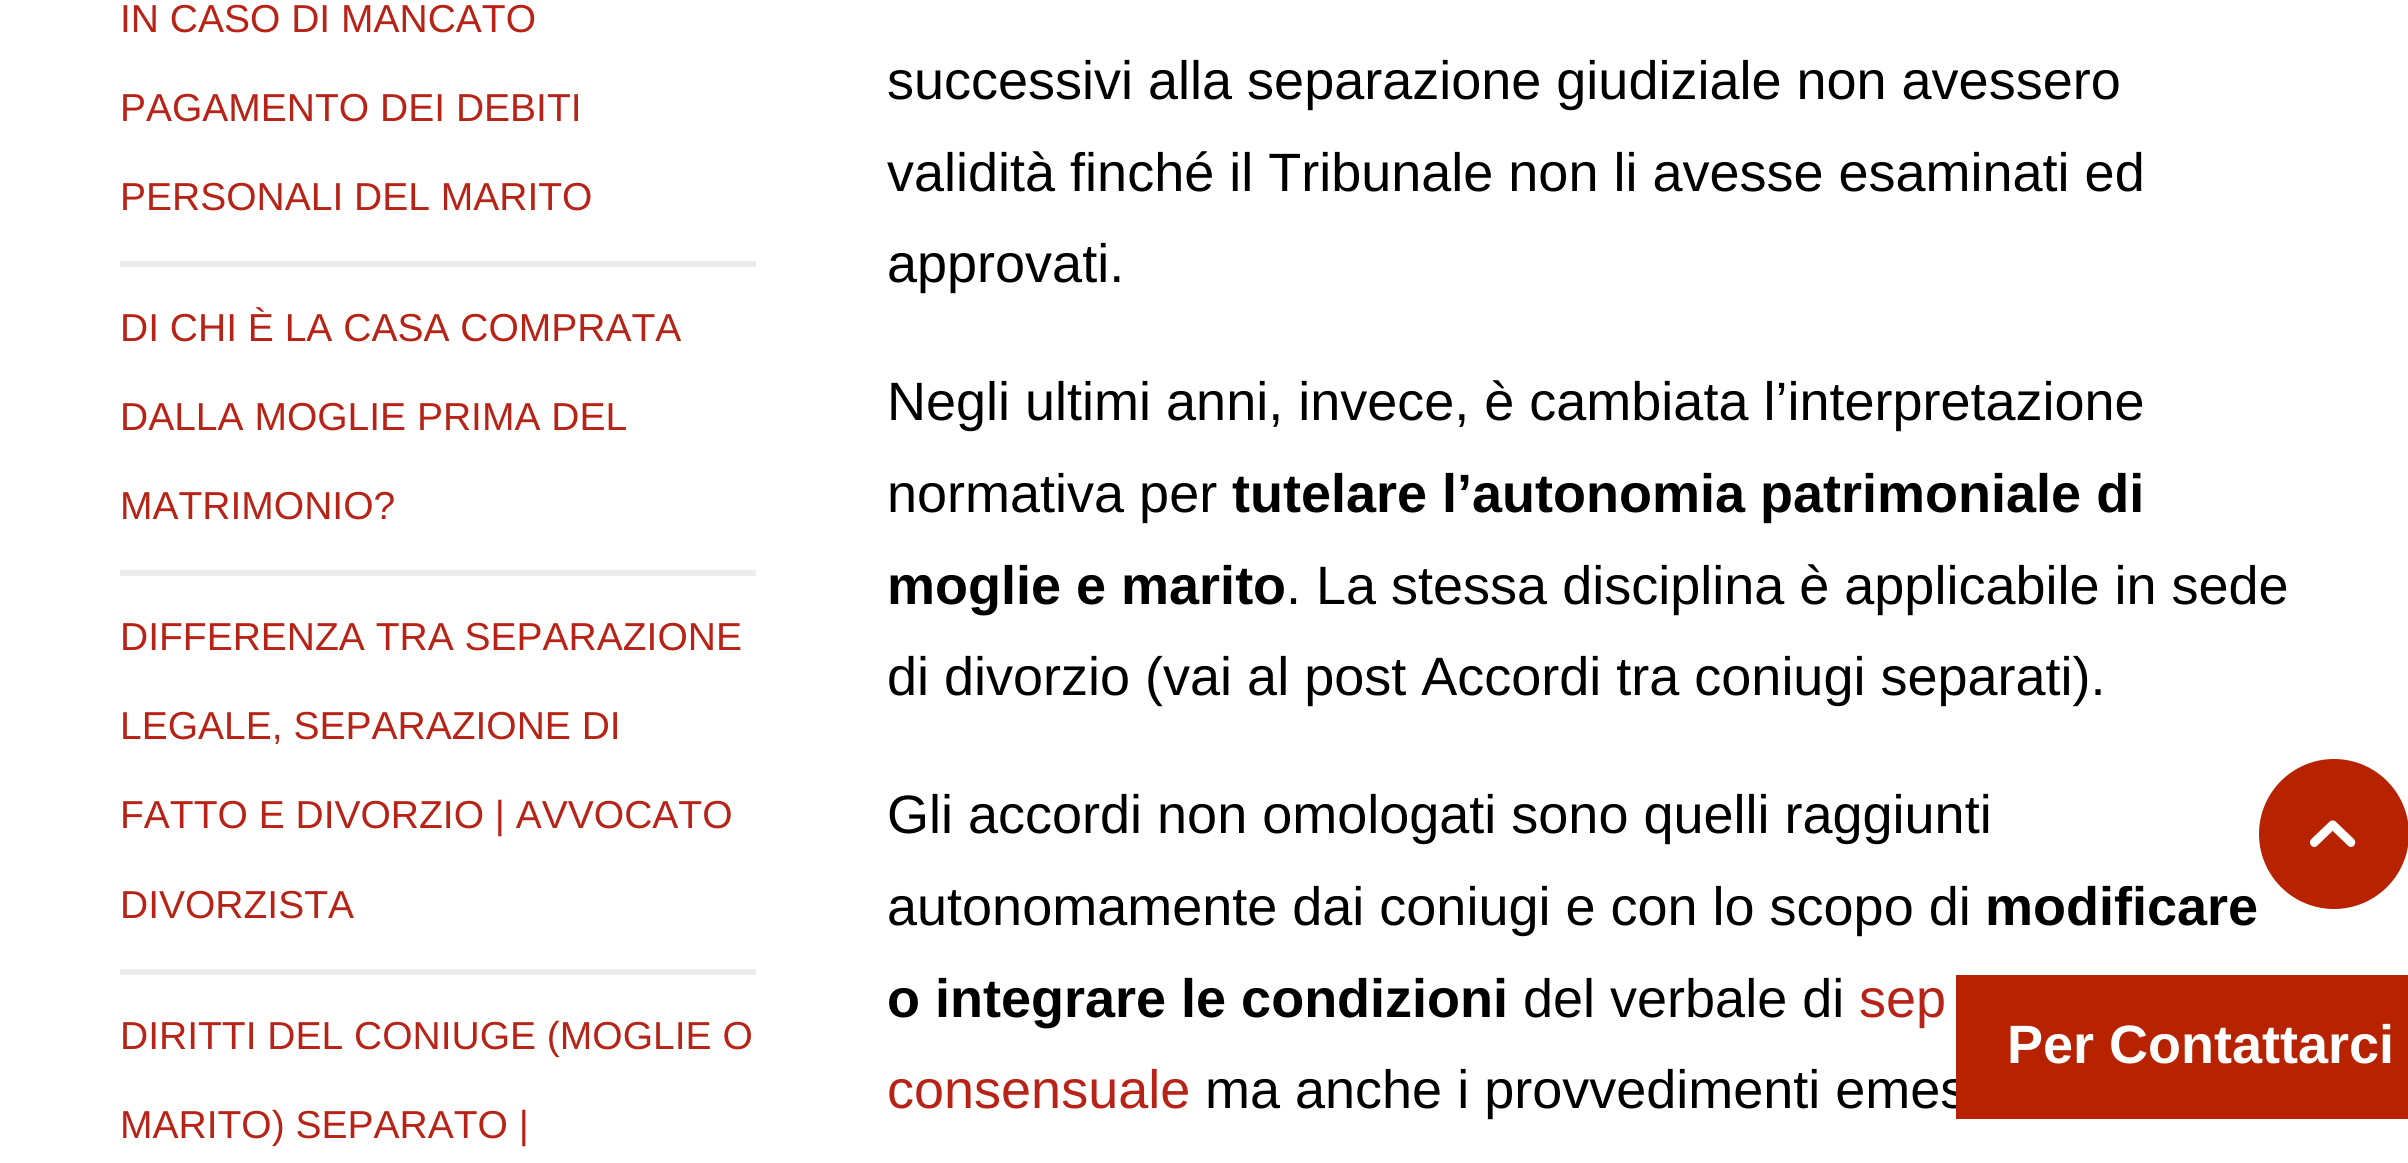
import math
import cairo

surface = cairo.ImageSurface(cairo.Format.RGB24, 2408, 1163)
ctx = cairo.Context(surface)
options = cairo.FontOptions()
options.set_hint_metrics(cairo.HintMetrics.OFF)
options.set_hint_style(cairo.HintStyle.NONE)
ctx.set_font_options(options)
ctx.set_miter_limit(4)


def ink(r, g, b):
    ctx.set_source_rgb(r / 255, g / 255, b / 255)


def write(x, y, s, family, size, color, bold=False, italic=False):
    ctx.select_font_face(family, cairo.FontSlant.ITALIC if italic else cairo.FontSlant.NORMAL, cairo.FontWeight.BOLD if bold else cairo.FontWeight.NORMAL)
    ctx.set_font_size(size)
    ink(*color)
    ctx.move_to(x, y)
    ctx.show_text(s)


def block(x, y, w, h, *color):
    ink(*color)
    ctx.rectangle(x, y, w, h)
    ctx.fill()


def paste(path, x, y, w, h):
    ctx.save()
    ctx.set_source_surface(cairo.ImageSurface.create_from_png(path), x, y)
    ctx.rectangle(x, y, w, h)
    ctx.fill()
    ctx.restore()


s1 = dict(family="Liberation Sans", size=39, color=(183, 36, 23))
s2 = dict(family="Liberation Sans", size=54, color=(0, 0, 0))
s3 = dict(family="Liberation Sans", size=54, color=(0, 0, 0), bold=True)
s4 = dict(family="Liberation Sans", size=54, color=(183, 36, 23))
s5 = dict(family="Liberation Sans", size=54, color=(255, 255, 255), bold=True)

ink(255, 255, 255)
ctx.paint()
block(120, 261, 636, 3, 235, 235, 235)
write(120, 32, "IN CASO DI MANCATO", **s1)
write(120, 121, "PAGAMENTO DEI DEBITI", **s1)
write(120, 210, "PERSONALI DEL MARITO", **s1)
block(120, 570, 636, 3, 235, 235, 235)
block(120, 264, 636, 3, 236, 236, 236)
write(120, 341, "DI CHI È LA CASA COMPRATA", **s1)
write(120, 430, "DALLA MOGLIE PRIMA DEL", **s1)
write(120, 519, "MATRIMONIO?", **s1)
block(120, 969, 636, 3, 235, 235, 235)
block(120, 573, 636, 3, 236, 236, 236)
write(120, 650, "DIFFERENZA TRA SEPARAZIONE", **s1)
write(120, 739, "LEGALE, SEPARAZIONE DI", **s1)
write(120, 828, "FATTO E DIVORZIO | AVVOCATO", **s1)
write(120, 918, "DIVORZISTA", **s1)
block(120, 972, 636, 3, 236, 236, 236)
write(120, 1049, "DIRITTI DEL CONIUGE (MOGLIE O", **s1)
write(120, 1138, "MARITO) SEPARATO |", **s1)
write(887, 99, "successivi alla separazione giudiziale non avessero", **s2)
write(887, 191, "validità finché il Tribunale non li avesse esaminati ed", **s2)
write(887, 282, "approvati.", **s2)
write(887, 420, "Negli ultimi anni, invece, è cambiata l’interpretazione", **s2)
write(887, 512, "normativa per", **s2)
write(1232, 512, "tutelare l’autonomia patrimoniale di", **s3)
write(887, 604, "moglie e marito", **s3)
write(1286, 604, ". La stessa disciplina è applicabile in sede", **s2)
write(887, 695, "di divorzio (vai al post Accordi tra coniugi separati).", **s2)
write(887, 833, "Gli accordi non omologati sono quelli raggiunti", **s2)
write(887, 925, "autonomamente dai coniugi e con lo scopo di", **s2)
write(1985, 925, "modificare", **s3)
write(887, 1017, "o integrare le condizioni", **s3)
write(1523, 1017, "del verbale di", **s2)
write(1859, 1017, "sep", **s4)
write(887, 1108, "consensuale", **s4)
write(1205, 1108, "ma anche i provvedimenti emes", **s2)
ink(183, 35, 0)
ctx.new_path()
ctx.arc(2334, 834, 75, 0, 2 * math.pi)
ctx.fill()
paste("pic1.png", 2310, 820, 46, 27)
block(1956, 975, 452, 144, 183, 35, 0)
write(2007, 1063, "Per Contattarci", **s5)
surface.write_to_png("screenshot.png")
